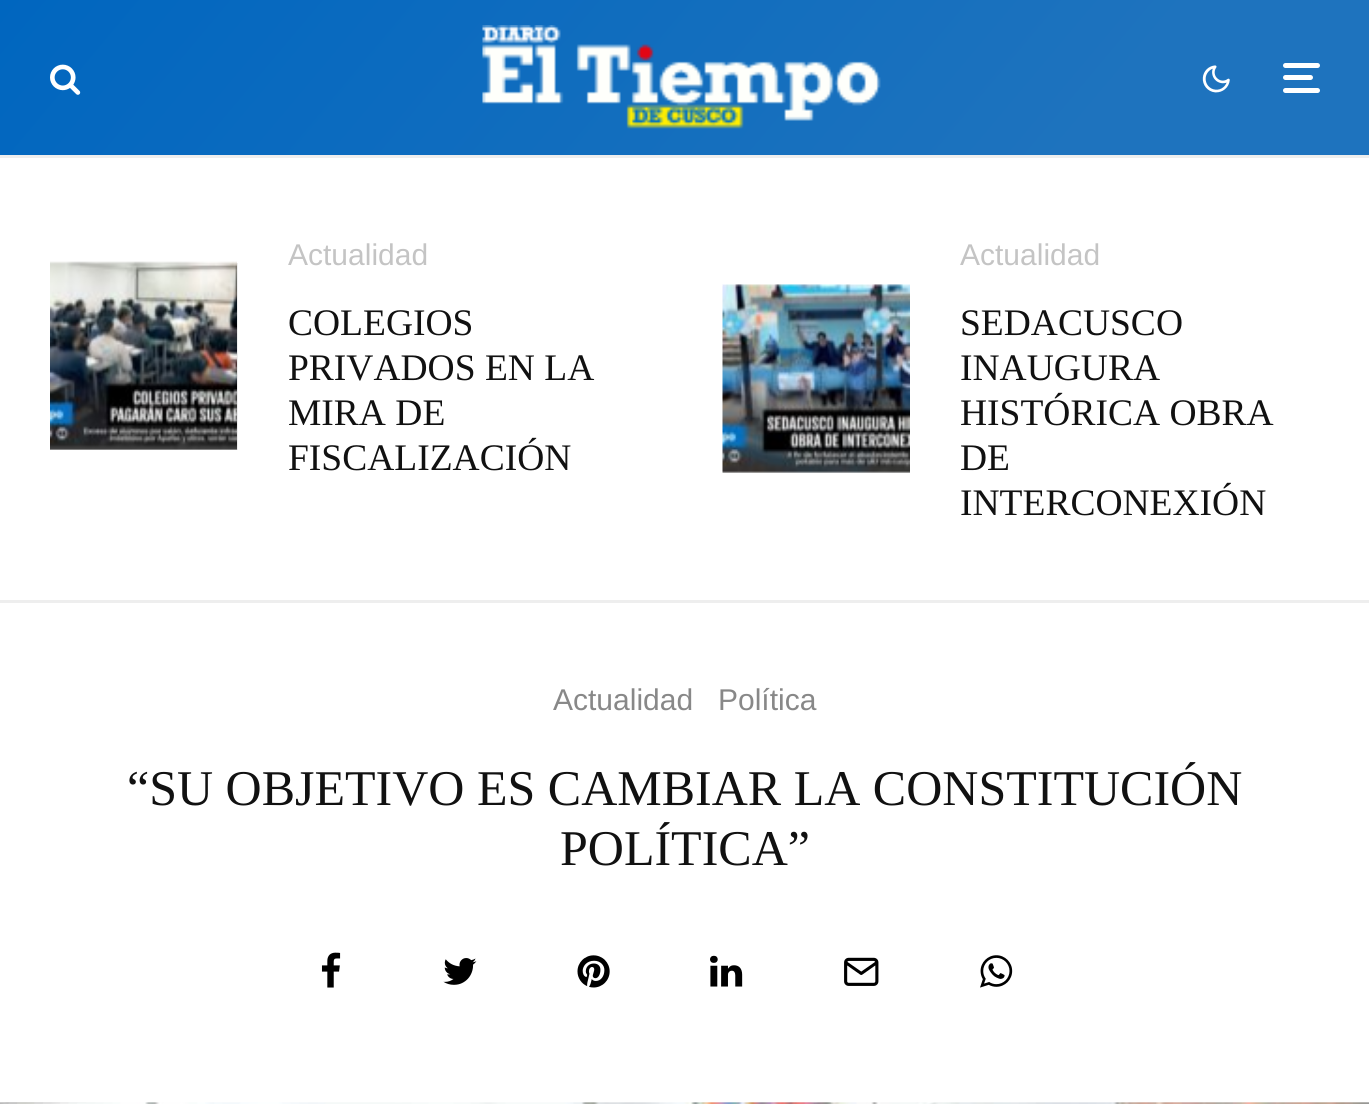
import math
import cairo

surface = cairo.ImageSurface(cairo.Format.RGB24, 1369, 1104)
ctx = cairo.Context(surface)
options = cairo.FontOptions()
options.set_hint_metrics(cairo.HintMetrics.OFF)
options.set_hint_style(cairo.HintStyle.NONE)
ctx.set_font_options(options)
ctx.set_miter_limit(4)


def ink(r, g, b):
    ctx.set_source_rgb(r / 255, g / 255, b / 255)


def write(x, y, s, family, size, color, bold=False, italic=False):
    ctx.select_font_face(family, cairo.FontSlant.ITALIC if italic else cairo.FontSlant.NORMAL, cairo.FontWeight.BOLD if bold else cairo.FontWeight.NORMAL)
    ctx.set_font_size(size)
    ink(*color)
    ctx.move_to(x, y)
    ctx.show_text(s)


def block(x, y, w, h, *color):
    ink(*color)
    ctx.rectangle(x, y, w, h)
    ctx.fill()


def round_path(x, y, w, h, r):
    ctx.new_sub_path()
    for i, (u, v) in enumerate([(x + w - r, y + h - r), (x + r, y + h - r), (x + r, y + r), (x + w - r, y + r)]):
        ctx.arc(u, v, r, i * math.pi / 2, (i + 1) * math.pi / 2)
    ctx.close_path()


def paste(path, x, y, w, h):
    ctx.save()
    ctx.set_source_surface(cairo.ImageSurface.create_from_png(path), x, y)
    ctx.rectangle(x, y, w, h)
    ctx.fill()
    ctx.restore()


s1 = dict(family="Liberation Sans", size=30, color=(196, 196, 196))
s2 = dict(family="Liberation Serif", size=37.5, color=(17, 17, 17))
s3 = dict(family="Liberation Sans", size=30, color=(136, 136, 136))
s4 = dict(family="Liberation Serif", size=50, color=(17, 17, 17))

ink(255, 255, 255)
ctx.paint()
gradient = cairo.LinearGradient(245, -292, 1125, 447)
gradient.add_color_stop_rgba(0, 0, 0.4, 0.749, 1)
gradient.add_color_stop_rgba(0.8, 0.118, 0.451, 0.745, 1)
ctx.set_source(gradient)
ctx.rectangle(0, 0, 1369, 155)
ctx.fill()
paste("pic1.png", 50, 64, 31, 31)
paste("pic2.png", 482, 25, 399, 104)
paste("pic3.png", 1202, 65, 28, 28)
ink(255, 255, 255)
round_path(1283, 75, 30, 5, 2.5)
ctx.fill()
round_path(1283, 63, 37, 5, 2.5)
ctx.fill()
round_path(1283, 88, 37, 5, 2.5)
ctx.fill()
block(0, 155, 1369, 3, 238, 238, 238)
block(0, 600, 1369, 3, 238, 238, 238)
block(50, 263, 188, 187, 238, 238, 238)
paste("pic4.png", 50, 261, 187, 189)
write(288, 265, "Actualidad", **s1)
write(288, 335, "COLEGIOS", **s2)
write(288, 380, "PRIVADOS EN LA", **s2)
write(288, 425, "MIRA DE", **s2)
write(288, 470, "FISCALIZACIÓN", **s2)
block(723, 285, 187, 188, 238, 238, 238)
paste("pic5.png", 722, 284, 188, 189)
write(960, 265, "Actualidad", **s1)
write(960, 335, "SEDACUSCO", **s2)
write(960, 380, "INAUGURA", **s2)
write(960, 425, "HISTÓRICA OBRA", **s2)
write(960, 470, "DE", **s2)
write(960, 515, "INTERCONEXIÓN", **s2)
write(553, 710, "Actualidad", **s3)
write(718, 710, "Política", **s3)
write(127, 805, "“SU OBJETIVO ES CAMBIAR LA CONSTITUCIÓN", **s4)
write(560, 865, "POLÍTICA”", **s4)
paste("pic6.png", 321, 952, 20, 36)
paste("pic7.png", 443, 958, 34, 27)
paste("pic8.png", 577, 955, 33, 33)
paste("pic9.png", 710, 955, 33, 32)
paste("pic10.png", 844, 957, 35, 29)
paste("pic11.png", 980, 955, 33, 33)
paste("pic12.png", 0, 1102, 1369, 2)
surface.write_to_png("screenshot.png")
